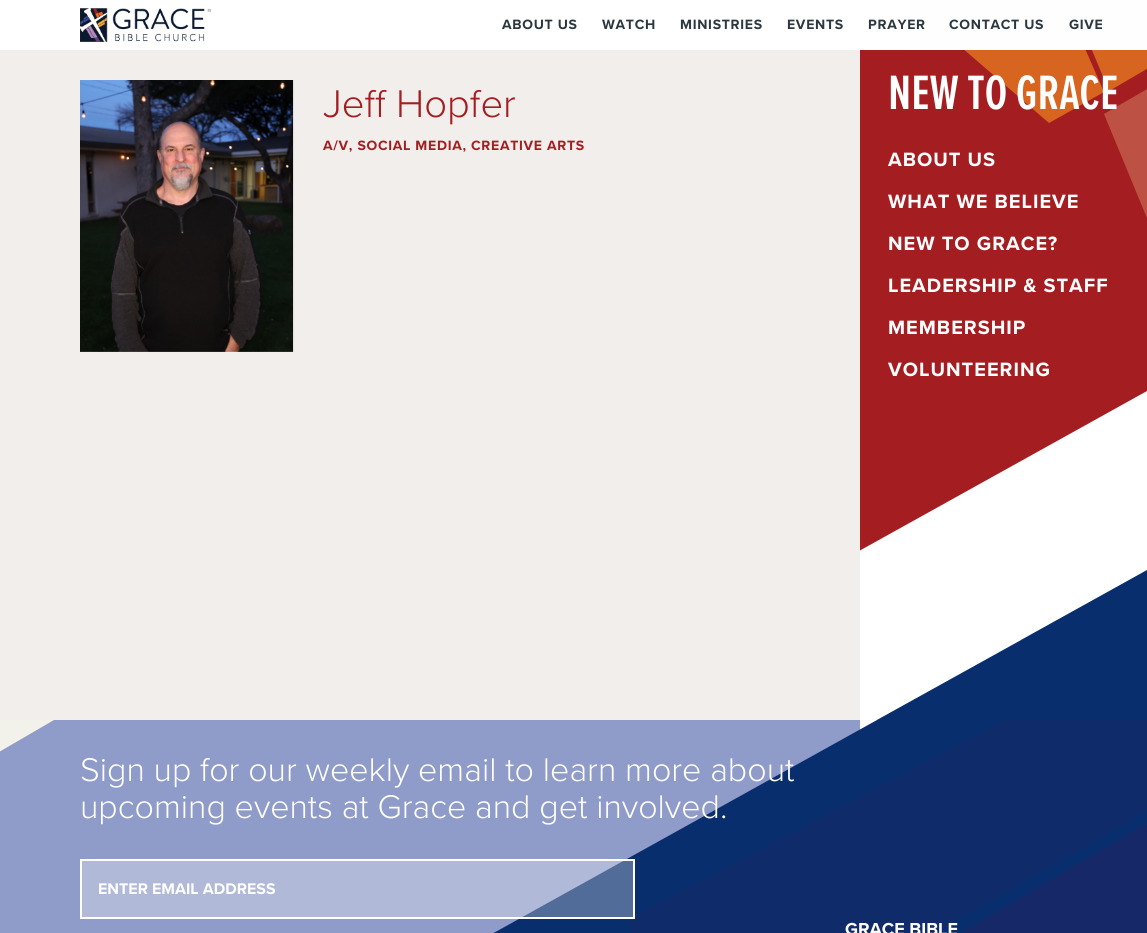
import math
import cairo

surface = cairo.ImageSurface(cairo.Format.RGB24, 1147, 933)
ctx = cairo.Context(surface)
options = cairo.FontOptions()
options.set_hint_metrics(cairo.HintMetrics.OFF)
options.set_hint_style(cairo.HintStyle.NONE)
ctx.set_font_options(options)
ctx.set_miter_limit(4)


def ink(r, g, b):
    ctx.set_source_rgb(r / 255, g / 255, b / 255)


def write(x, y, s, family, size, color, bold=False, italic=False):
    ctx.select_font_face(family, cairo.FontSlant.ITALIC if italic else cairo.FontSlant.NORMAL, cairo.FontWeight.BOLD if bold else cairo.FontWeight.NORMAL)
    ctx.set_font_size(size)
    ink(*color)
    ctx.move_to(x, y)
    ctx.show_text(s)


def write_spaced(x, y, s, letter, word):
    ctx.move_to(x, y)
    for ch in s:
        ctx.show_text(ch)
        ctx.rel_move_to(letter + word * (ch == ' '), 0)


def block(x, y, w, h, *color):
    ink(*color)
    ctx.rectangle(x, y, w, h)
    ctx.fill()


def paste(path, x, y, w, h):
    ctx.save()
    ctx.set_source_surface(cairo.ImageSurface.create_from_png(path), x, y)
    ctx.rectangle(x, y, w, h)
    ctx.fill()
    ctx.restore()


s1 = dict(family="Proxima Nova Light", size=40, color=(164, 30, 33))
s2 = dict(family="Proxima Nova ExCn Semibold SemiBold", size=50, color=(254, 254, 254))
s3 = dict(family="Proxima Nova Light", size=34, color=(254, 254, 254))
s4 = dict(family="Proxima Nova", size=16, color=(254, 254, 254), bold=True)
s5 = dict(family="Proxima Nova", size=18, color=(254, 254, 254), bold=True)

ink(255, 255, 255)
ctx.paint()
block(860, 50, 287, 341, 164, 30, 33)
ink(216, 101, 31)
ctx.set_fill_rule(cairo.FillRule.EVEN_ODD)
ctx.new_path()
ctx.move_to(1033, -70)
ctx.line_to(910, 3)
ctx.line_to(1049, 123)
ctx.line_to(1104, 92)
ctx.close_path()
ctx.fill()
ink(189, 82, 68)
ctx.new_path()
ctx.move_to(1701, -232)
ctx.line_to(1104, 114)
ctx.line_to(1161, 252)
ctx.line_to(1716, -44)
ctx.close_path()
ctx.fill()
ink(216, 101, 31)
ctx.new_path()
ctx.move_to(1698, -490)
ctx.line_to(1039, -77)
ctx.line_to(1109, 91)
ctx.line_to(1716, -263)
ctx.close_path()
ctx.fill()
block(910, 0, 237, 50, 254, 254, 254)
paste("pic1.png", 80, 8, 131, 34)
ctx.select_font_face("Proxima Nova", cairo.FontSlant.NORMAL, cairo.FontWeight.BOLD)
ctx.set_font_size(14)
ink(44, 56, 64)
write_spaced(502, 29, "ABOUT US", 0.7, 0)
write_spaced(602, 29, "WATCH", 0.7, 0)
write_spaced(680, 29, "MINISTRIES", 0.7, 0)
write_spaced(787, 29, "EVENTS", 0.7, 0)
write_spaced(868, 29, "PRAYER", 0.7, 0)
write_spaced(949, 29, "CONTACT US", 0.7, 0)
write_spaced(1069, 29, "GIVE", 0.7, 0)
paste("pic3.png", 877, 570, 270, 150)
ink(164, 30, 33)
ctx.set_fill_rule(cairo.FillRule.WINDING)
ctx.new_path()
ctx.move_to(247, 391)
ctx.line_to(1147, 391)
ctx.line_to(247, 891)
ctx.close_path()
ctx.fill()
block(0, 50, 860, 670, 242, 238, 236)
paste("pic2.png", 80, 80, 214, 272)
write(323, 117, "Jeff Hopfer", **s1)
ctx.select_font_face("Proxima Nova", cairo.FontSlant.NORMAL, cairo.FontWeight.BOLD)
ctx.set_font_size(14)
write_spaced(323, 150, "A/V, SOCIAL MEDIA, CREATIVE ARTS", 0.7, 0)
write(888, 109, "NEW TO GRACE", **s2)
ctx.select_font_face("Proxima Nova", cairo.FontSlant.NORMAL, cairo.FontWeight.BOLD)
ctx.set_font_size(20)
write_spaced(888, 166, "ABOUT US", 1, 0)
write_spaced(888, 208, "WHAT WE BELIEVE", 1, 0)
write_spaced(888, 250, "NEW TO GRACE?", 1, 0)
write_spaced(888, 292, "LEADERSHIP & STAFF", 1, 0)
write_spaced(888, 334, "MEMBERSHIP", 1, 0)
write_spaced(888, 376, "VOLUNTEERING", 1, 0)
block(0, 720, 860, 213, 143, 155, 200)
ink(242, 241, 234)
ctx.new_path()
ctx.move_to(-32, 720)
ctx.line_to(54, 720)
ctx.line_to(-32, 770)
ctx.close_path()
ctx.fill()
ctx.save()
ctx.rectangle(0, 720, 1147, 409)
ctx.clip()
ink(8, 46, 109)
ctx.new_path()
ctx.move_to(1147, 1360)
ctx.line_to(-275, 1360)
ctx.line_to(1147, 570)
ctx.close_path()
ctx.fill()
ctx.restore()
ctx.save()
ctx.rectangle(446, 720, 701, 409)
ctx.clip()
ink(16, 43, 106)
ctx.set_fill_rule(cairo.FillRule.EVEN_ODD)
ctx.new_path()
ctx.move_to(645, 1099)
ctx.line_to(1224, 766)
ctx.line_to(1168, 634)
ctx.line_to(630, 919)
ctx.close_path()
ctx.fill()
ctx.restore()
write(80, 781, "Sign up for our weekly email to learn more about", **s3)
write(80, 818, "upcoming events at Grace and get involved.", **s3)
ctx.set_source_rgba(1, 1, 1, 0.3)
ctx.rectangle(81, 860, 553, 58)
ctx.fill_preserve()
ink(254, 254, 254)
ctx.stroke()
write(98, 894, "ENTER EMAIL ADDRESS", **s4)
ink(23, 40, 104)
ctx.set_fill_rule(cairo.FillRule.EVEN_ODD)
ctx.new_path()
ctx.move_to(646, 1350)
ctx.line_to(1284, 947)
ctx.line_to(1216, 783)
ctx.line_to(629, 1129)
ctx.close_path()
ctx.fill()
write(845, 935, "GRACE BIBLE", **s5)
surface.write_to_png("screenshot.png")
